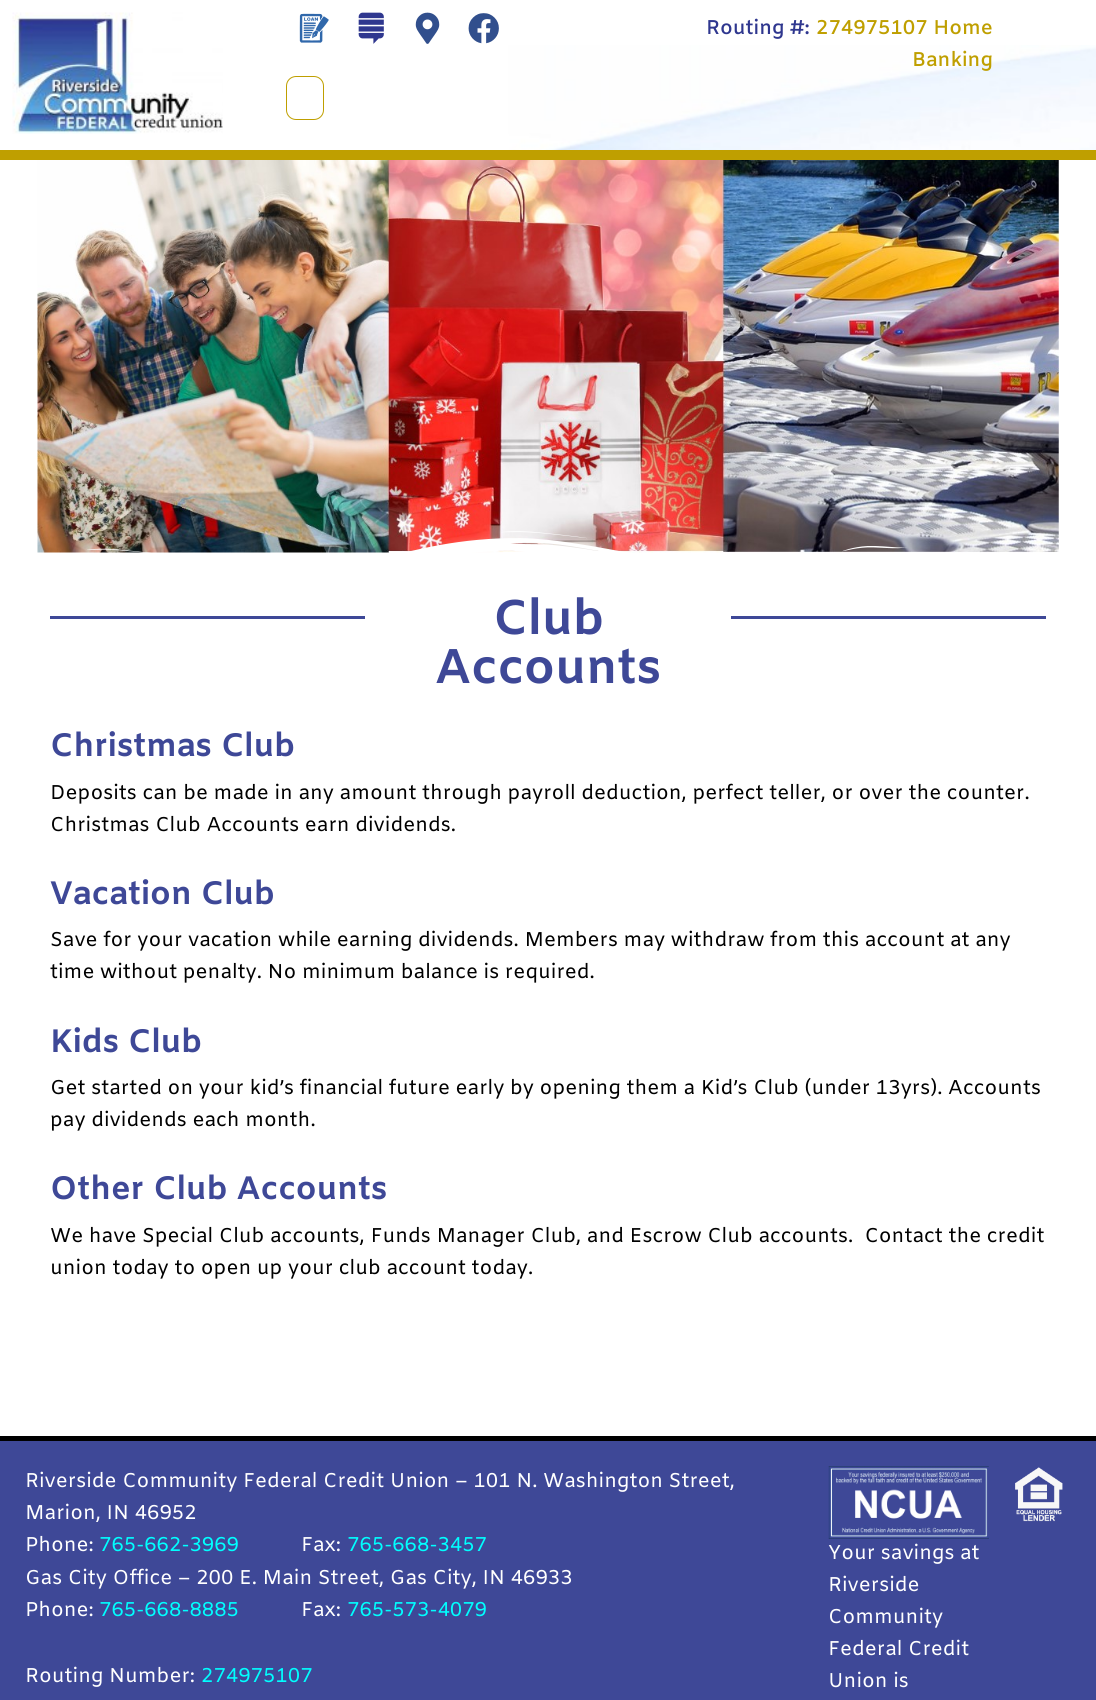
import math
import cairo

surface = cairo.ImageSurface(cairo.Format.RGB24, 1096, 1700)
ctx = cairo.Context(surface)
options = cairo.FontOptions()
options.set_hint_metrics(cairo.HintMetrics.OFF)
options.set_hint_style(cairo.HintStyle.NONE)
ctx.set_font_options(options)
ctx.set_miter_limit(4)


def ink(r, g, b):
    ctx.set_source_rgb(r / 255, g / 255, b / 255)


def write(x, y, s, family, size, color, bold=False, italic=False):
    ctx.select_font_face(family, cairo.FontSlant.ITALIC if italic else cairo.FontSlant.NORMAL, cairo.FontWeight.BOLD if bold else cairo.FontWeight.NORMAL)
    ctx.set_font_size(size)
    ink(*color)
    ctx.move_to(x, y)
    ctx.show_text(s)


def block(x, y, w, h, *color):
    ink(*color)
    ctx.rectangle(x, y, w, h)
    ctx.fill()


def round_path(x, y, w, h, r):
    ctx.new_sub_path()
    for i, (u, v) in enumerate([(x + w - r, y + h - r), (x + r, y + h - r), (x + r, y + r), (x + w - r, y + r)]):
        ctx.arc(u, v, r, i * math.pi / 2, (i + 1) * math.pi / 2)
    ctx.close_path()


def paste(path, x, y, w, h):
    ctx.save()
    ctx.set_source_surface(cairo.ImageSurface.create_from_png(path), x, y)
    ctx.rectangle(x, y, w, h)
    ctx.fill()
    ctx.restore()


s1 = dict(family="Amiko SemiBold", size=20, color=(47, 55, 143))
s2 = dict(family="Amiko SemiBold", size=20, color=(191, 159, 0))
s3 = dict(family="Amiko", size=48.75, color=(62, 72, 151), bold=True)
s4 = dict(family="Amiko", size=32.5, color=(62, 72, 151), bold=True)
s5 = dict(family="Amiko", size=20, color=(0, 0, 0))
s6 = dict(family="Amiko", size=20, color=(255, 255, 255))
s7 = dict(family="Amiko", size=20, color=(0, 255, 255))

ink(255, 255, 255)
ctx.paint()
paste("pic1.png", 508, 45, 588, 105)
block(0, 150, 1096, 10, 191, 159, 0)
paste("pic2.png", 12, 12, 211, 122)
paste("pic3.png", 299, 13, 30, 30)
paste("pic4.png", 358, 12, 26, 32)
paste("pic5.png", 415, 12, 25, 32)
paste("pic6.png", 468, 13, 31, 31)
round_path(286.5, 76.5, 37, 43, 9.5)
ctx.set_line_width(1)
ctx.stroke()
write(706, 34, "Routing #:", **s1)
write(816, 34, "274975107 Home", **s2)
write(912, 66, "Banking", **s2)
paste("pic7.png", 37, 160, 1022, 393)
paste("pic8.png", 87, 531, 820, 22)
block(50, 616, 315, 3, 62, 72, 151)
write(493, 634, "Club", **s3)
write(435, 683, "Accounts", **s3)
block(731, 616, 315, 3, 62, 72, 151)
write(50, 756, "Christmas Club", **s4)
write(50, 799, "Deposits can be made in any amount through payroll deduction, perfect teller, or over the counter.", **s5)
write(50, 831, "Christmas Club Accounts earn dividends.", **s5)
write(50, 904, "Vacation Club", **s4)
write(50, 946, "Save for your vacation while earning dividends. Members may withdraw from this account at any", **s5)
write(50, 978, "time without penalty. No minimum balance is required.", **s5)
write(50, 1052, "Kids Club", **s4)
write(50, 1094, "Get started on your kid’s financial future early by opening them a Kid’s Club (under 13yrs). Accounts", **s5)
write(50, 1126, "pay dividends each month.", **s5)
write(50, 1199, "Other Club Accounts", **s4)
write(50, 1242, "We have Special Club accounts, Funds Manager Club, and Escrow Club accounts.  Contact the credit", **s5)
write(50, 1274, "union today to open up your club account today.", **s5)
block(0, 1441, 1096, 259, 62, 72, 151)
block(0, 1436, 1096, 5, 0, 0, 0)
write(25, 1487, "Riverside Community Federal Credit Union – 101 N. Washington Street,", **s6)
write(25, 1519, "Marion, IN 46952", **s6)
write(25, 1551, "Phone:", **s6)
write(99, 1551, "765-662-3969", **s7)
write(301, 1551, "Fax:", **s6)
write(347, 1551, "765-668-3457", **s7)
write(25, 1584, "Gas City Office – 200 E. Main Street, Gas City, IN 46933", **s6)
write(25, 1616, "Phone:", **s6)
write(99, 1616, "765-668-8885", **s7)
write(301, 1616, "Fax:", **s6)
write(347, 1616, "765-573-4079", **s7)
write(25, 1682, "Routing Number:", **s6)
write(201, 1682, "274975107", **s7)
paste("pic9.png", 828, 1466, 161, 73)
write(828, 1559, "Your savings at", **s6)
write(828, 1591, "Riverside", **s6)
write(828, 1623, "Community", **s6)
write(828, 1655, "Federal Credit", **s6)
write(828, 1687, "Union is", **s6)
paste("pic10.png", 1015, 1467, 48, 55)
surface.write_to_png("screenshot.png")
